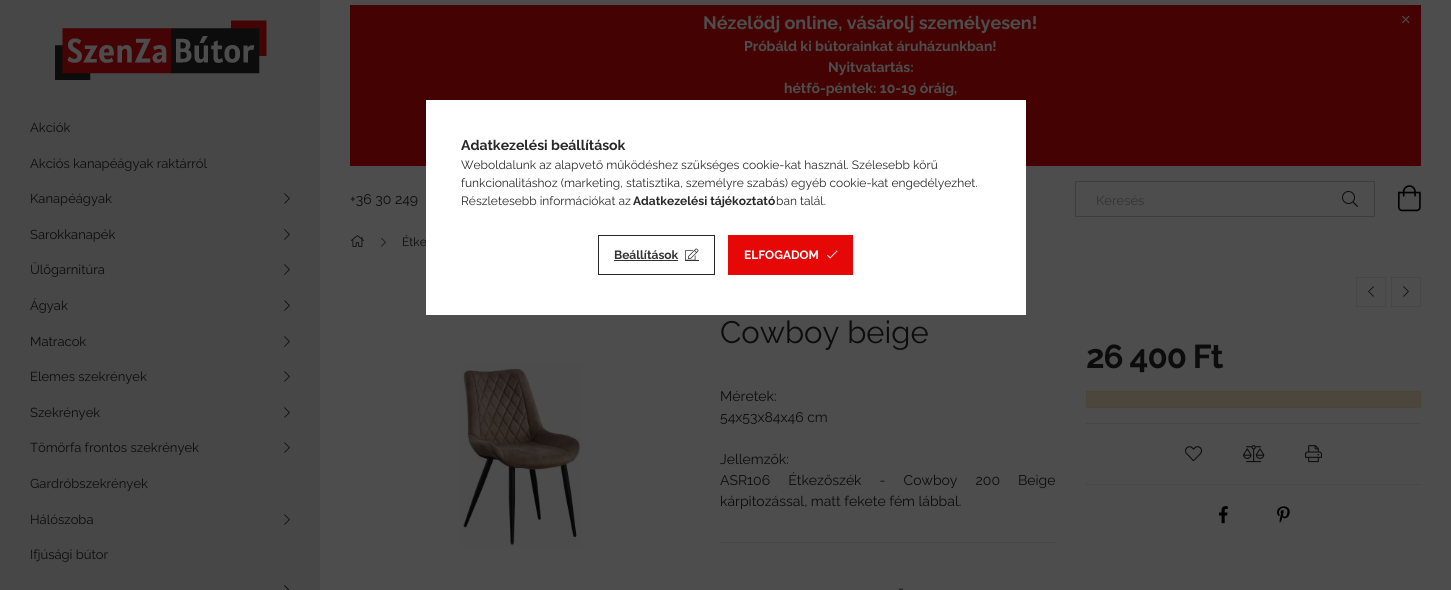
import math
import cairo

surface = cairo.ImageSurface(cairo.Format.RGB24, 1451, 590)
ctx = cairo.Context(surface)
options = cairo.FontOptions()
options.set_hint_metrics(cairo.HintMetrics.OFF)
options.set_hint_style(cairo.HintStyle.NONE)
ctx.set_font_options(options)
ctx.set_miter_limit(4)


def ink(r, g, b):
    ctx.set_source_rgb(r / 255, g / 255, b / 255)


def write(x, y, s, family, size, color, bold=False, italic=False):
    ctx.select_font_face(family, cairo.FontSlant.ITALIC if italic else cairo.FontSlant.NORMAL, cairo.FontWeight.BOLD if bold else cairo.FontWeight.NORMAL)
    ctx.set_font_size(size)
    ink(*color)
    ctx.move_to(x, y)
    ctx.show_text(s)


def write_spaced(x, y, s, letter, word):
    ctx.move_to(x, y)
    for ch in s:
        ctx.show_text(ch)
        ctx.rel_move_to(letter + word * (ch == ' '), 0)


def block(x, y, w, h, *color):
    ink(*color)
    ctx.rectangle(x, y, w, h)
    ctx.fill()


def paste(path, x, y, w, h):
    ctx.save()
    ctx.set_source_surface(cairo.ImageSurface.create_from_png(path), x, y)
    ctx.rectangle(x, y, w, h)
    ctx.fill()
    ctx.restore()


s1 = dict(family="Raleway", size=13, color=(12, 12, 12))
s2 = dict(family="Raleway", size=18, color=(77, 77, 77), bold=True)
s3 = dict(family="Raleway", size=14, color=(77, 77, 77), bold=True)
s4 = dict(family="Raleway", size=14, color=(12, 12, 12))
s5 = dict(family="Raleway", size=13, color=(51, 51, 51))
s6 = dict(family="Raleway", size=12, color=(12, 12, 12))
s7 = dict(family="Raleway", size=31, color=(12, 12, 12))
s8 = dict(family="Raleway", size=14, color=(40, 40, 40), bold=True)
s9 = dict(family="Raleway", size=12, color=(40, 40, 40))
s10 = dict(family="Raleway", size=12, color=(40, 40, 40), bold=True)
s11 = dict(family="Raleway", size=12, color=(51, 51, 51), bold=True)
s12 = dict(family="Raleway", size=12, color=(255, 255, 255), bold=True)

ink(77, 77, 77)
ctx.paint()
block(0, 0, 320, 590, 71, 71, 71)
paste("pic1.png", 55, 20, 212, 60)
write(30, 132, "Akciók", **s1)
write(30, 168, "Akciós kanapéágyak raktárról", **s1)
write(30, 203, "Kanapéágyak", **s1)
paste("pic2.png", 284, 193, 6, 11)
write(30, 239, "Sarokkanapék", **s1)
paste("pic2.png", 284, 229, 6, 11)
write(30, 274, "Ülőgarnitúra", **s1)
paste("pic2.png", 284, 264, 6, 11)
write(30, 310, "Ágyak", **s1)
paste("pic2.png", 284, 300, 6, 11)
write(30, 346, "Matracok", **s1)
paste("pic2.png", 284, 336, 6, 11)
write(30, 381, "Elemes szekrények", **s1)
paste("pic2.png", 284, 371, 6, 11)
write(30, 417, "Szekrények", **s1)
paste("pic2.png", 284, 407, 6, 11)
write(30, 452, "Tömörfa frontos szekrények", **s1)
paste("pic2.png", 284, 442, 6, 11)
write(30, 488, "Gardróbszekrények", **s1)
write(30, 524, "Hálószoba", **s1)
paste("pic2.png", 284, 514, 6, 11)
write(30, 559, "Ifjúsági bútor", **s1)
paste("pic3.png", 284, 585, 6, 5)
block(350, 5, 1071, 161, 69, 2, 2)
write(703, 29, "Nézelődj online, vásárolj személyesen!", **s2)
paste("pic4.png", 1402, 15, 8, 9)
write(744, 51, "Próbáld ki bútorainkat áruházunkban!", **s3)
write(828, 72, "Nyitvatartás:", **s3)
write(784, 93, "hétfő-péntek: 10-19 óráig,", **s3)
write(350, 204, "+36 30 249", **s4)
ctx.rectangle(1075.5, 181.5, 299, 35)
ink(61, 61, 61)
ctx.set_line_width(1)
ctx.stroke()
write(1096, 205, "Keresés", **s5)
paste("pic5.png", 1342, 191, 16, 16)
paste("pic6.png", 1398, 185, 23, 27)
paste("pic7.png", 350, 235, 14, 12)
paste("pic8.png", 381, 237, 5, 10)
write(402, 246, "Étke", **s6)
paste("pic9.png", 460, 365, 122, 182)
write(720, 343, "Cowboy beige", **s7)
write(720, 401, "Méretek:", **s4)
write(720, 422, "54x53x84x46 cm", **s4)
write(720, 464, "Jellemzők:", **s4)
write_spaced(720, 485, "ASR106 Étkezőszék - Cowboy 200 Beige", 0, 14.5)
write(720, 506, "kárpitozással, matt fekete fém lábbal.", **s4)
block(720, 542, 336, 1, 70, 70, 70)
write(898, 593, "-", **s4)
ctx.rectangle(1356.5, 277.5, 29, 29)
ink(70, 70, 70)
ctx.stroke()
paste("pic10.png", 1368, 286, 6, 11)
ctx.rectangle(1391.5, 277.5, 29, 29)
ctx.stroke()
paste("pic11.png", 1403, 286, 6, 11)
ctx.select_font_face("Raleway", cairo.FontSlant.NORMAL, cairo.FontWeight.BOLD)
ctx.set_font_size(33)
ink(12, 12, 12)
write_spaced(1086, 368, "26 400 Ft", -1, 0)
ink(76, 70, 61)
ctx.rectangle(1086.5, 391.5, 334, 16)
ctx.fill_preserve()
ink(75, 68, 55)
ctx.stroke()
block(1086, 423, 335, 1, 70, 70, 70)
paste("pic12.png", 1185, 446, 17, 15)
paste("pic13.png", 1243, 445, 22, 18)
paste("pic14.png", 1305, 445, 17, 18)
block(1086, 484, 335, 1, 70, 70, 70)
paste("pic15.png", 1219, 506, 9, 18)
paste("pic16.png", 1277, 506, 13, 17)
block(426, 100, 600, 215, 255, 255, 255)
write(461, 150, "Adatkezelési beállítások", **s8)
write(461, 169, "Weboldalunk az alapvető működéshez szükséges cookie-kat használ. Szélesebb körű", **s9)
write(461, 187, "funkcionalitáshoz (marketing, statisztika, személyre szabás) egyéb cookie-kat engedélyezhet.", **s9)
write(461, 205, "Részletesebb információkat az", **s9)
write(633, 205, "Adatkezelési tájékoztató", **s10)
write(776, 205, "ban talál.", **s9)
ctx.rectangle(598.5, 235.5, 116, 39)
ctx.stroke()
write(614, 259, "Beállítások", **s11)
block(614, 260, 64, 1, 51, 51, 51)
paste("pic17.png", 685, 248, 14, 12)
block(685, 260, 14, 1, 51, 51, 51)
block(728, 235, 125, 40, 230, 7, 7)
write(744, 259, "ELFOGADOM", **s12)
paste("pic18.png", 827, 250, 11, 9)
surface.write_to_png("screenshot.png")
